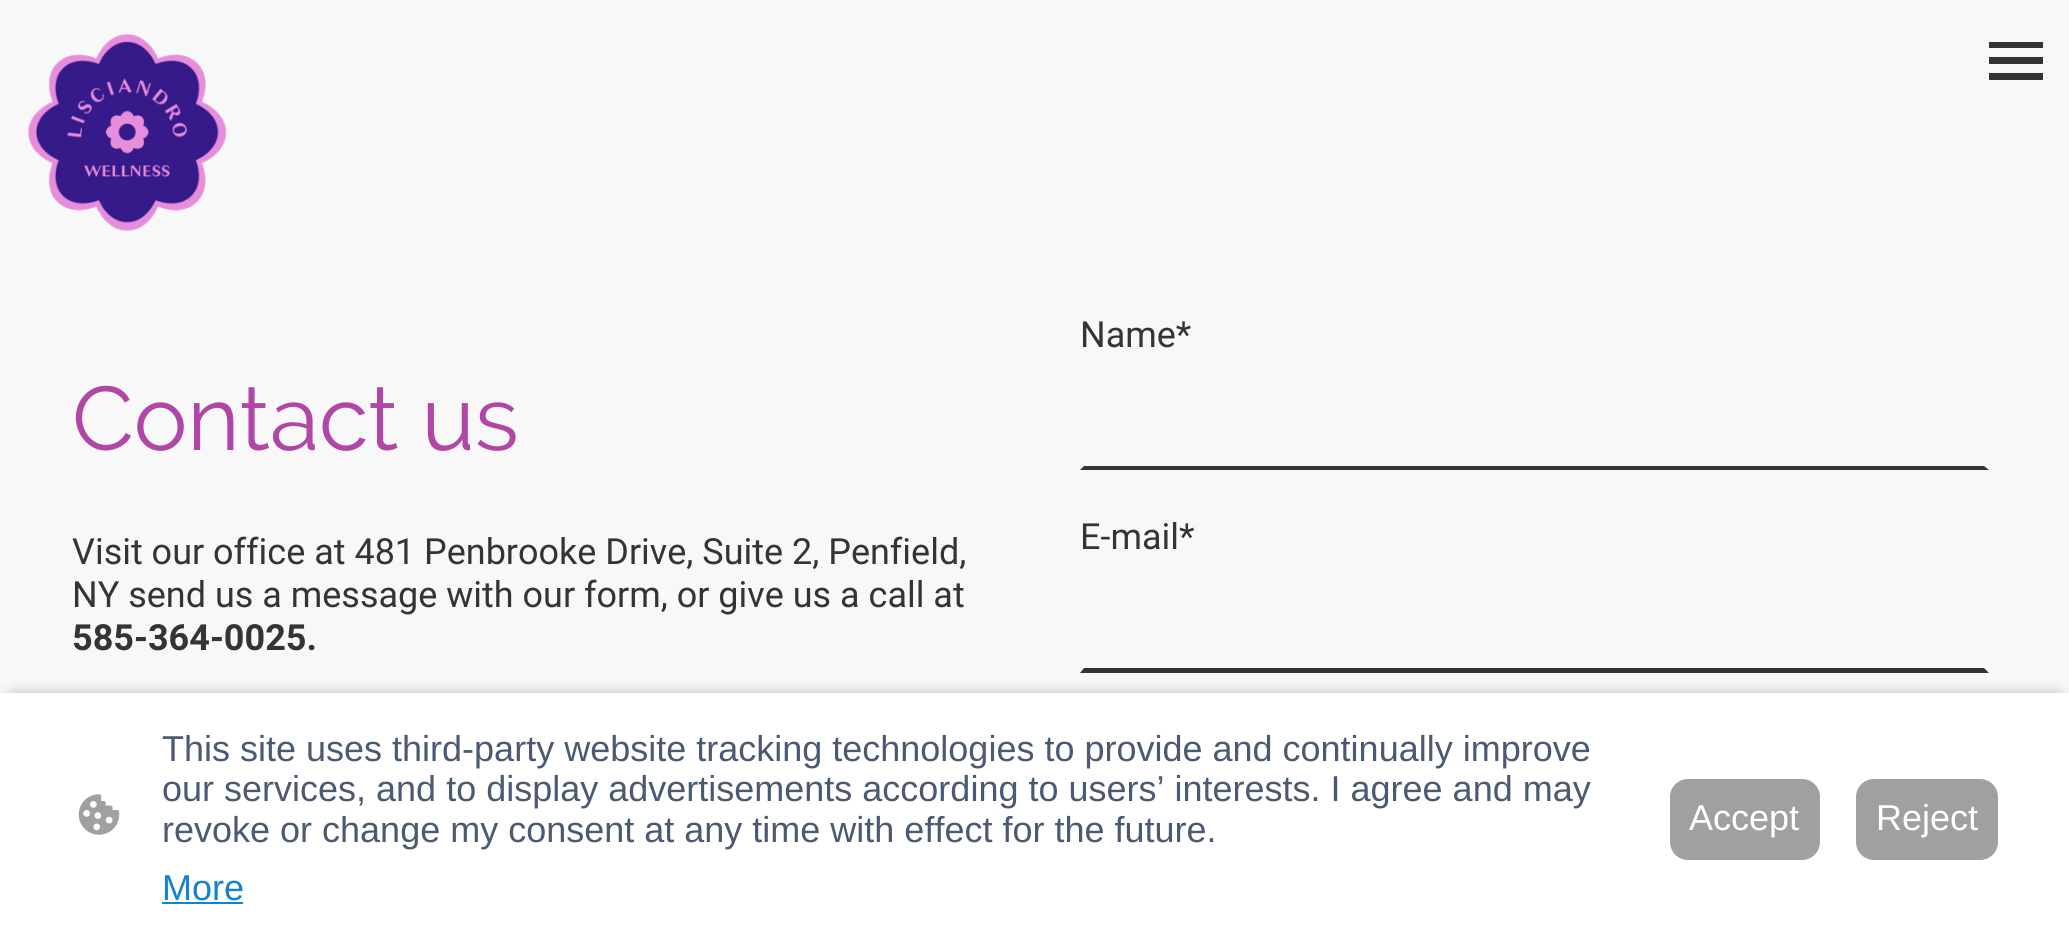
import math
import cairo

surface = cairo.ImageSurface(cairo.Format.RGB24, 2069, 943)
ctx = cairo.Context(surface)
options = cairo.FontOptions()
options.set_hint_metrics(cairo.HintMetrics.OFF)
options.set_hint_style(cairo.HintStyle.NONE)
ctx.set_font_options(options)
ctx.set_miter_limit(4)


def ink(r, g, b):
    ctx.set_source_rgb(r / 255, g / 255, b / 255)


def write(x, y, s, family, size, color, bold=False, italic=False):
    ctx.select_font_face(family, cairo.FontSlant.ITALIC if italic else cairo.FontSlant.NORMAL, cairo.FontWeight.BOLD if bold else cairo.FontWeight.NORMAL)
    ctx.set_font_size(size)
    ink(*color)
    ctx.move_to(x, y)
    ctx.show_text(s)


def block(x, y, w, h, *color):
    ink(*color)
    ctx.rectangle(x, y, w, h)
    ctx.fill()


def round_path(x, y, w, h, r):
    ctx.new_sub_path()
    for i, (u, v) in enumerate([(x + w - r, y + h - r), (x + r, y + h - r), (x + r, y + r), (x + w - r, y + r)]):
        ctx.arc(u, v, r, i * math.pi / 2, (i + 1) * math.pi / 2)
    ctx.close_path()


def blur_box(x, y, w, h, r, blur, alpha):
    ctx.push_group_with_content(cairo.Content.ALPHA)
    ctx.set_operator(cairo.Operator.SOURCE)
    for i in range(15, -16, -2):
        e = blur * i / 6
        if min(w, h) + 2 * e > 0:
            ctx.set_source_rgba(0, 0, 0, alpha * math.erfc((i - 1) / 8.5) / 2)
            round_path(x - e, y - e, w + 2 * e, h + 2 * e, max(0, min(r + e + blur * .6, min(w, h) / 2 + e)))
            ctx.fill()
    ctx.mask(ctx.pop_group())


def paste(path, x, y, w, h):
    ctx.save()
    ctx.set_source_surface(cairo.ImageSurface.create_from_png(path), x, y)
    ctx.rectangle(x, y, w, h)
    ctx.fill()
    ctx.restore()


s1 = dict(family="Raleway", size=90, color=(176, 71, 166))
s2 = dict(family="Roboto", size=36, color=(52, 52, 52))
s3 = dict(family="Roboto", size=36, color=(52, 52, 52), bold=True)
s4 = dict(family="Liberation Sans", size=36, color=(74, 90, 115))
s5 = dict(family="Liberation Sans", size=36, color=(17, 131, 209))
s6 = dict(family="Liberation Sans", size=36, color=(255, 255, 255))

ink(248, 248, 248)
ctx.paint()
paste("pic1.png", 28, 34, 199, 198)
block(1989, 42, 54, 6, 52, 52, 52)
block(1989, 57, 54, 7, 52, 52, 52)
block(1989, 73, 54, 7, 52, 52, 52)
write(72, 450, "Contact us", **s1)
write(72, 564, "Visit our office at 481 Penbrooke Drive, Suite 2, Penfield,", **s2)
write(72, 607, "NY send us a message with our form, or give us a call at", **s2)
write(72, 650, "585-364-0025.", **s3)
write(1080, 347, "Name*", **s2)
ctx.new_path()
ctx.move_to(1989, 470)
ctx.line_to(1080, 470)
ctx.line_to(1084, 466)
ctx.line_to(1984, 466)
ctx.close_path()
ctx.fill()
write(1080, 549, "E-mail*", **s2)
ctx.new_path()
ctx.move_to(1989, 673)
ctx.line_to(1080, 673)
ctx.line_to(1084, 668)
ctx.line_to(1984, 668)
ctx.close_path()
ctx.fill()
ink(0, 0, 0)
blur_box(14, 700, 2043, 225, 0, 9, 0.63)
block(0, 693, 2069, 250, 255, 255, 255)
paste("pic2.png", 78, 794, 42, 41)
write(162, 761, "This site uses third-party website tracking technologies to provide and continually improve", **s4)
write(162, 801, "our services, and to display advertisements according to users’ interests. I agree and may", **s4)
write(162, 842, "revoke or change my consent at any time with effect for the future.", **s4)
write(162, 900, "More", **s5)
block(162, 902, 81, 2, 17, 131, 209)
ink(160, 160, 160)
round_path(1671, 780, 148, 79, 17)
ctx.fill_preserve()
ctx.stroke()
write(1689, 830, "Accept", **s6)
ink(160, 160, 160)
round_path(1857, 780, 140, 79, 17)
ctx.fill_preserve()
ctx.stroke()
write(1876, 830, "Reject", **s6)
surface.write_to_png("screenshot.png")
